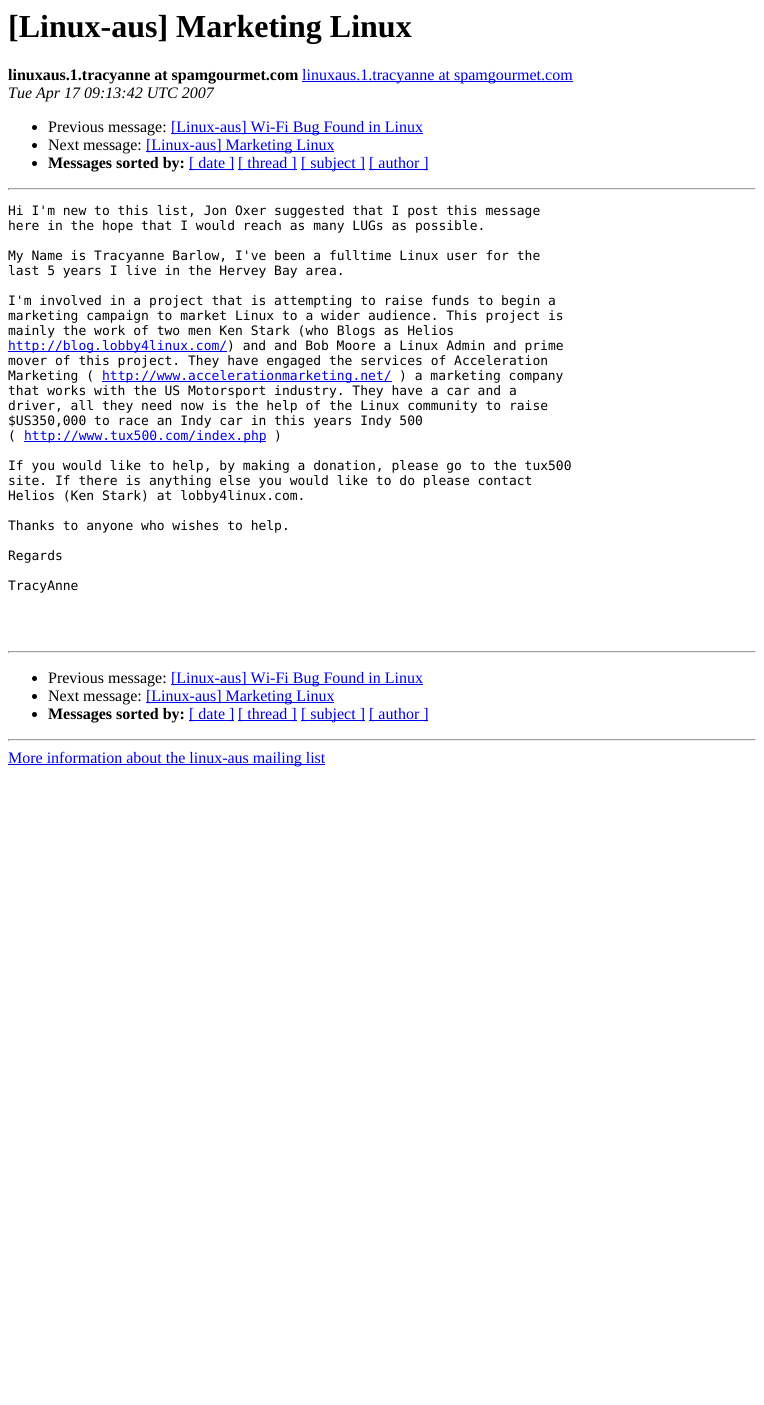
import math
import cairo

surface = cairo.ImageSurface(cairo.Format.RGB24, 764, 1405)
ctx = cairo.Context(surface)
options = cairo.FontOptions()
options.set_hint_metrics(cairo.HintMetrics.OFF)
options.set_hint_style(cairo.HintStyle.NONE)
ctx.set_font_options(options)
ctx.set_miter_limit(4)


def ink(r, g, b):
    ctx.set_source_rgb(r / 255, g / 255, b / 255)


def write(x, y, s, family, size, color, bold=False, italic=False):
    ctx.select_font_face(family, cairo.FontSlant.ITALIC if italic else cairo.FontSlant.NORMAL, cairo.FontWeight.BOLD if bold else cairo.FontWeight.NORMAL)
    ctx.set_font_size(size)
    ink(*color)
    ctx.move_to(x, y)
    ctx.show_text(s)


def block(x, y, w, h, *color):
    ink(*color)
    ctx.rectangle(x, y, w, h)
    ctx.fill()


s1 = dict(family="Liberation Serif", size=32, color=(0, 0, 0), bold=True)
s2 = dict(family="Liberation Serif", size=16, color=(0, 0, 0), bold=True)
s3 = dict(family="Liberation Serif", size=16, color=(0, 0, 238))
s4 = dict(family="Liberation Serif", size=16, color=(0, 0, 0), italic=True)
s5 = dict(family="Liberation Serif", size=16, color=(0, 0, 0))
s6 = dict(family="DejaVu Sans Mono", size=13, color=(0, 0, 0))
s7 = dict(family="DejaVu Sans Mono", size=13, color=(0, 0, 238))

ink(255, 255, 255)
ctx.paint()
write(8, 37, "[Linux-aus] Marketing Linux", **s1)
write(8, 80, "linuxaus.1.tracyanne at spamgourmet.com", **s2)
block(302, 81, 271, 1, 0, 0, 238)
write(302, 80, "linuxaus.1.tracyanne at spamgourmet.com", **s3)
write(8, 98, "Tue Apr 17 09:13:42 UTC 2007", **s4)
ctx.new_path()
ctx.arc(34.5, 127.5, 2.5, 0, 2 * math.pi)
ctx.fill()
write(48, 132, "Previous message:", **s5)
block(171, 133, 252, 1, 0, 0, 238)
write(171, 132, "[Linux-aus] Wi-Fi Bug Found in Linux", **s3)
ink(0, 0, 0)
ctx.new_path()
ctx.arc(34.5, 145.5, 2.5, 0, 2 * math.pi)
ctx.fill()
write(48, 150, "Next message:", **s5)
block(146, 151, 188, 1, 0, 0, 238)
write(146, 150, "[Linux-aus] Marketing Linux", **s3)
ink(0, 0, 0)
ctx.new_path()
ctx.arc(34.5, 163.5, 2.5, 0, 2 * math.pi)
ctx.fill()
write(48, 168, "Messages sorted by:", **s2)
block(189, 169, 45, 1, 0, 0, 238)
write(189, 168, "[ date ]", **s3)
block(238, 169, 59, 1, 0, 0, 238)
write(238, 168, "[ thread ]", **s3)
block(301, 169, 64, 1, 0, 0, 238)
write(301, 168, "[ subject ]", **s3)
block(369, 169, 59, 1, 0, 0, 238)
write(369, 168, "[ author ]", **s3)
block(8, 188, 748, 1, 159, 159, 159)
block(755, 188, 1, 2, 238, 238, 238)
block(8, 189, 748, 1, 238, 238, 238)
block(8, 188, 1, 2, 159, 159, 159)
write(8, 215, "Hi I'm new to this list, Jon Oxer suggested that I post this message", **s6)
write(8, 230, "here in the hope that I would reach as many LUGs as possible.", **s6)
write(8, 260, "My Name is Tracyanne Barlow, I've been a fulltime Linux user for the", **s6)
write(8, 275, "last 5 years I live in the Hervey Bay area.", **s6)
write(8, 305, "I'm involved in a project that is attempting to raise funds to begin a", **s6)
write(8, 320, "marketing campaign to market Linux to a wider audience. This project is", **s6)
write(8, 335, "mainly the work of two men Ken Stark (who Blogs as Helios", **s6)
block(8, 351, 219, 1, 0, 0, 238)
write(8, 350, "http://blog.lobby4linux.com/", **s7)
write(227, 350, ") and and Bob Moore a Linux Admin and prime", **s6)
write(8, 365, "mover of this project. They have engaged the services of Acceleration", **s6)
write(8, 380, "Marketing (", **s6)
block(102, 381, 290, 1, 0, 0, 238)
write(102, 380, "http://www.accelerationmarketing.net/", **s7)
write(399, 380, ") a marketing company", **s6)
write(8, 395, "that works with the US Motorsport industry. They have a car and a", **s6)
write(8, 410, "driver, all they need now is the help of the Linux community to raise", **s6)
write(8, 425, "$US350,000 to race an Indy car in this years Indy 500", **s6)
write(8, 440, "(", **s6)
block(24, 441, 242, 1, 0, 0, 238)
write(24, 440, "http://www.tux500.com/index.php", **s7)
write(274, 440, ")", **s6)
write(8, 470, "If you would like to help, by making a donation, please go to the tux500", **s6)
write(8, 485, "site. If there is anything else you would like to do please contact", **s6)
write(8, 500, "Helios (Ken Stark) at lobby4linux.com.", **s6)
write(8, 530, "Thanks to anyone who wishes to help.", **s6)
write(8, 560, "Regards", **s6)
write(8, 590, "TracyAnne", **s6)
block(8, 651, 748, 1, 159, 159, 159)
block(755, 651, 1, 2, 238, 238, 238)
block(8, 652, 748, 1, 238, 238, 238)
block(8, 651, 1, 2, 159, 159, 159)
ink(0, 0, 0)
ctx.new_path()
ctx.arc(34.5, 678.5, 2.5, 0, 2 * math.pi)
ctx.fill()
write(48, 683, "Previous message:", **s5)
block(171, 684, 252, 1, 0, 0, 238)
write(171, 683, "[Linux-aus] Wi-Fi Bug Found in Linux", **s3)
ink(0, 0, 0)
ctx.new_path()
ctx.arc(34.5, 696.5, 2.5, 0, 2 * math.pi)
ctx.fill()
write(48, 701, "Next message:", **s5)
block(146, 702, 188, 1, 0, 0, 238)
write(146, 701, "[Linux-aus] Marketing Linux", **s3)
ink(0, 0, 0)
ctx.new_path()
ctx.arc(34.5, 714.5, 2.5, 0, 2 * math.pi)
ctx.fill()
write(48, 719, "Messages sorted by:", **s2)
block(189, 720, 45, 1, 0, 0, 238)
write(189, 719, "[ date ]", **s3)
block(238, 720, 59, 1, 0, 0, 238)
write(238, 719, "[ thread ]", **s3)
block(301, 720, 64, 1, 0, 0, 238)
write(301, 719, "[ subject ]", **s3)
block(369, 720, 59, 1, 0, 0, 238)
write(369, 719, "[ author ]", **s3)
block(8, 739, 748, 1, 159, 159, 159)
block(755, 739, 1, 2, 238, 238, 238)
block(8, 740, 748, 1, 238, 238, 238)
block(8, 739, 1, 2, 159, 159, 159)
block(8, 764, 317, 1, 0, 0, 238)
write(8, 763, "More information about the linux-aus mailing list", **s3)
surface.write_to_png("screenshot.png")
